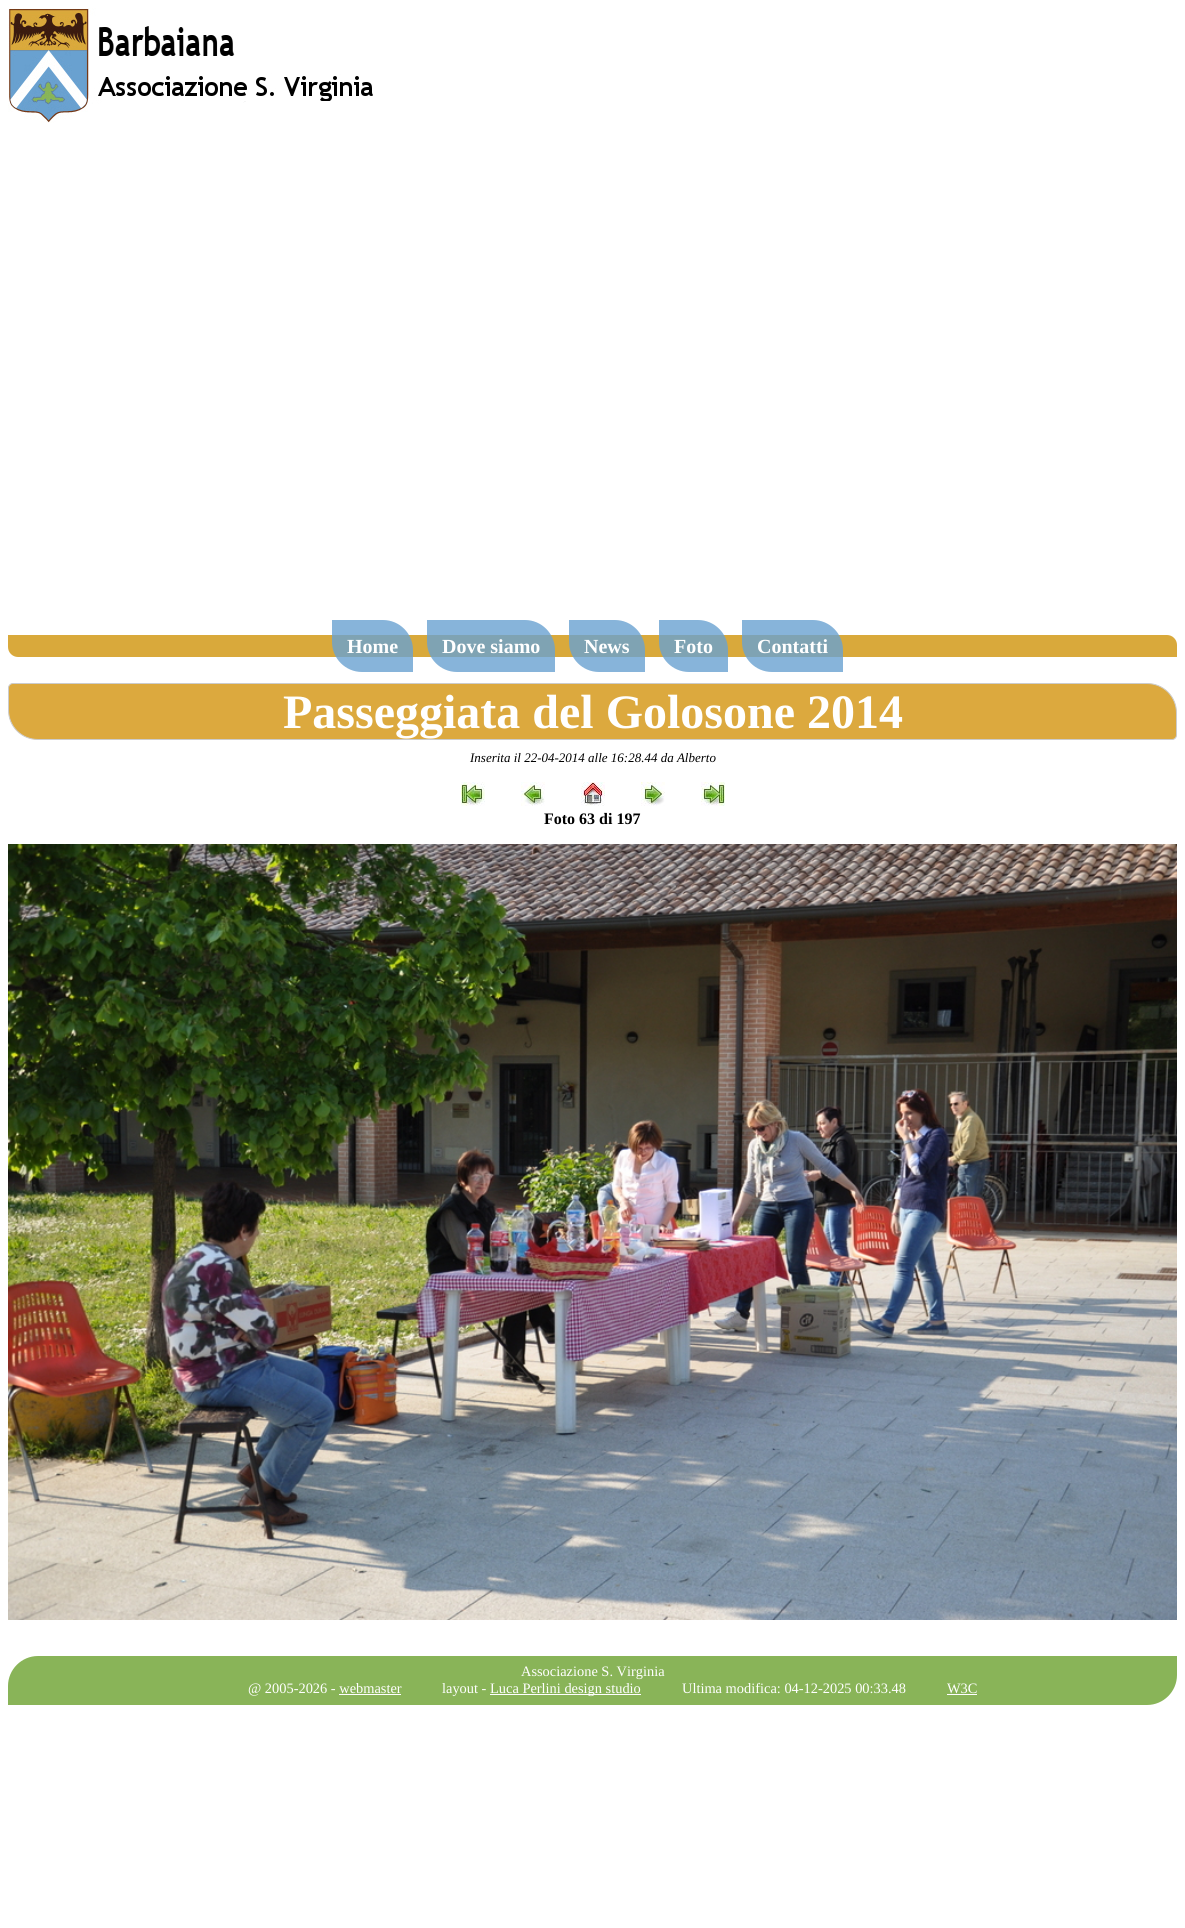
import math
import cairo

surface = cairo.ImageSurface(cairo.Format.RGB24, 1185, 1928)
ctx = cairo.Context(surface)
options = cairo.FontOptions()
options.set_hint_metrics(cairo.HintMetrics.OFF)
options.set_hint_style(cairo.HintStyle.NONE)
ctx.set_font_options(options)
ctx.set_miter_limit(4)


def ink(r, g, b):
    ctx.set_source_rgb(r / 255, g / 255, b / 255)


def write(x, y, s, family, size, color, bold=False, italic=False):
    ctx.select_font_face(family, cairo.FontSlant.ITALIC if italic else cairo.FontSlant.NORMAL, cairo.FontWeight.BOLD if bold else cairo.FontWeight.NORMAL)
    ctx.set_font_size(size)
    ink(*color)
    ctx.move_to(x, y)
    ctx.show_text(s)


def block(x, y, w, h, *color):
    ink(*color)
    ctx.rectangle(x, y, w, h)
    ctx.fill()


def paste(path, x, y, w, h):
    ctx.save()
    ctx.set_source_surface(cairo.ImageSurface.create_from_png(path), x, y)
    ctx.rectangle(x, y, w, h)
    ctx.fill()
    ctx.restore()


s1 = dict(family="Liberation Serif", size=20, color=(255, 255, 255), bold=True)
s2 = dict(family="Liberation Serif", size=48, color=(255, 255, 255), bold=True)
s3 = dict(family="Liberation Serif", size=13, color=(0, 0, 0), italic=True)
s4 = dict(family="Liberation Serif", size=16, color=(0, 0, 0), bold=True)
s5 = dict(family="Liberation Serif", size=14.4, color=(255, 255, 255))

ink(255, 255, 255)
ctx.paint()
paste("pic1.png", 8, 8, 365, 115)
ink(217, 169, 59)
ctx.new_path()
ctx.move_to(8, 635)
ctx.line_to(1167, 635)
ctx.curve_to(1172.5, 635, 1177, 639.5, 1177, 645)
ctx.line_to(1177, 657)
ctx.line_to(18, 657)
ctx.curve_to(12.5, 657, 8, 652.5, 8, 647)
ctx.close_path()
ctx.fill()
ctx.set_source_rgba(0.412, 0.631, 0.816, 0.8)
ctx.new_path()
ctx.move_to(332, 620)
ctx.line_to(383, 620)
ctx.curve_to(399.5, 620, 413, 633.5, 413, 650)
ctx.line_to(413, 672)
ctx.line_to(362, 672)
ctx.curve_to(345.5, 672, 332, 658.5, 332, 642)
ctx.close_path()
ctx.fill()
write(347, 653, "Home", **s1)
ctx.set_source_rgba(0.412, 0.631, 0.816, 0.8)
ctx.new_path()
ctx.move_to(427, 620)
ctx.line_to(525, 620)
ctx.curve_to(541.5, 620, 555, 633.5, 555, 650)
ctx.line_to(555, 672)
ctx.line_to(457, 672)
ctx.curve_to(440.5, 672, 427, 658.5, 427, 642)
ctx.close_path()
ctx.fill()
write(442, 653, "Dove siamo", **s1)
ctx.set_source_rgba(0.412, 0.631, 0.816, 0.8)
ctx.new_path()
ctx.move_to(569, 620)
ctx.line_to(615, 620)
ctx.curve_to(631.5, 620, 645, 633.5, 645, 650)
ctx.line_to(645, 672)
ctx.line_to(599, 672)
ctx.curve_to(582.5, 672, 569, 658.5, 569, 642)
ctx.close_path()
ctx.fill()
write(584, 653, "News", **s1)
ctx.set_source_rgba(0.412, 0.631, 0.816, 0.8)
ctx.new_path()
ctx.move_to(659, 620)
ctx.line_to(698, 620)
ctx.curve_to(714.5, 620, 728, 633.5, 728, 650)
ctx.line_to(728, 672)
ctx.line_to(689, 672)
ctx.curve_to(672.5, 672, 659, 658.5, 659, 642)
ctx.close_path()
ctx.fill()
write(674, 653, "Foto", **s1)
ctx.set_source_rgba(0.412, 0.631, 0.816, 0.8)
ctx.new_path()
ctx.move_to(742, 620)
ctx.line_to(813, 620)
ctx.curve_to(829.5, 620, 843, 633.5, 843, 650)
ctx.line_to(843, 672)
ctx.line_to(772, 672)
ctx.curve_to(755.5, 672, 742, 658.5, 742, 642)
ctx.close_path()
ctx.fill()
write(757, 653, "Contatti", **s1)
ink(220, 169, 62)
ctx.new_path()
ctx.move_to(13, 683.5)
ctx.line_to(1147, 683.5)
ctx.curve_to(1163.5, 683.5, 1176.5, 696.5, 1176.5, 713)
ctx.line_to(1176.5, 735)
ctx.curve_to(1176.5, 737.5, 1174.5, 739.5, 1172, 739.5)
ctx.line_to(38, 739.5)
ctx.curve_to(21.5, 739.5, 8.5, 726.5, 8.5, 710)
ctx.line_to(8.5, 688)
ctx.curve_to(8.5, 685.5, 10.5, 683.5, 13, 683.5)
ctx.close_path()
ctx.fill_preserve()
ink(204, 204, 204)
ctx.set_line_width(1)
ctx.stroke()
write(283, 728, "Passeggiata del Golosone 2014", **s2)
write(470, 762, "Inserita il 22-04-2014 alle 16:28.44 da Alberto", **s3)
paste("pic2.png", 461, 782, 24, 24)
paste("pic3.png", 521, 782, 24, 24)
paste("pic4.png", 581, 782, 24, 24)
paste("pic5.png", 641, 782, 24, 24)
paste("pic6.png", 701, 782, 24, 24)
write(544, 824, "Foto 63 di 197", **s4)
paste("pic7.png", 8, 844, 1169, 776)
ink(137, 180, 88)
ctx.new_path()
ctx.move_to(38, 1656)
ctx.line_to(1177, 1656)
ctx.line_to(1177, 1675)
ctx.curve_to(1177, 1691.5, 1163.5, 1705, 1147, 1705)
ctx.line_to(8, 1705)
ctx.line_to(8, 1686)
ctx.curve_to(8, 1669.5, 21.5, 1656, 38, 1656)
ctx.close_path()
ctx.fill()
write(521, 1676, "Associazione S. Virginia", **s5)
write(248, 1693, "@ 2005-2026 - webmaster", **s5)
block(339, 1694, 62, 1, 255, 255, 255)
write(442, 1693, "layout -", **s5)
block(490, 1694, 151, 1, 255, 255, 255)
write(490, 1693, "Luca Perlini design studio", **s5)
write(682, 1693, "Ultima modifica: 04-12-2025 00:33.48", **s5)
write(947, 1693, "W3C", **s5)
block(947, 1694, 30, 1, 255, 255, 255)
surface.write_to_png("screenshot.png")
